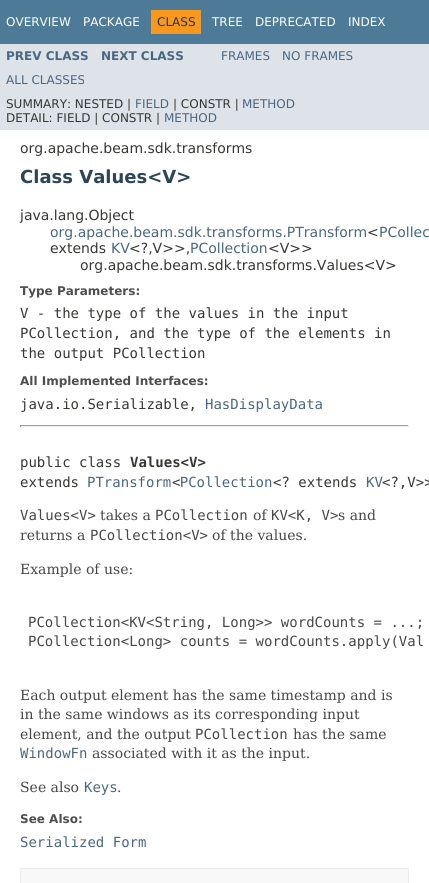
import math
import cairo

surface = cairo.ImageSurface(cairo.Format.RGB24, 429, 883)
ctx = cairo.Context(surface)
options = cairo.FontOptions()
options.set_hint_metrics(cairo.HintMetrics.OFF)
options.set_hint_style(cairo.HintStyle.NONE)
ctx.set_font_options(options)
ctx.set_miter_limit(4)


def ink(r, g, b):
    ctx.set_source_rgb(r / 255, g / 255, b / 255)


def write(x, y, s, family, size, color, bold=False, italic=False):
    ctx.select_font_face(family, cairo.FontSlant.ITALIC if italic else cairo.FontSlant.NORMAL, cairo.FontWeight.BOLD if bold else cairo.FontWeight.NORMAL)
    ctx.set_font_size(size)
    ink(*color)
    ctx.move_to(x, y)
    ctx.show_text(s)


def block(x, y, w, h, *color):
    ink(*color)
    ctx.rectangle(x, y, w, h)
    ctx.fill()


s1 = dict(family="DejaVu Sans", size=12, color=(255, 255, 255))
s2 = dict(family="DejaVu Sans", size=12, color=(37, 52, 65))
s3 = dict(family="DejaVu Sans", size=12, color=(74, 103, 130), bold=True)
s4 = dict(family="DejaVu Sans", size=12, color=(74, 103, 130))
s5 = dict(family="DejaVu Sans", size=12, color=(53, 56, 51))
s6 = dict(family="DejaVu Sans", size=14, color=(53, 56, 51))
s7 = dict(family="DejaVu Sans", size=18, color=(44, 69, 87), bold=True)
s8 = dict(family="DejaVu Sans", size=14, color=(74, 103, 130))
s9 = dict(family="DejaVu Sans", size=12, color=(78, 78, 78), bold=True)
s10 = dict(family="DejaVu Sans Mono", size=14, color=(53, 56, 51))
s11 = dict(family="DejaVu Sans Mono", size=14, color=(74, 103, 130))
s12 = dict(family="DejaVu Sans Mono", size=14, color=(53, 56, 51), bold=True)
s13 = dict(family="DejaVu Sans Mono", size=14, color=(71, 71, 71))
s14 = dict(family="DejaVu Serif", size=14, color=(71, 71, 71))

ink(255, 255, 255)
ctx.paint()
block(0, 0, 429, 44, 77, 122, 151)
write(6, 26, "OVERVIEW", **s1)
write(83, 26, "PACKAGE", **s1)
block(151, 10, 50, 24, 248, 152, 29)
write(157, 26, "CLASS", **s2)
write(212, 26, "TREE", **s1)
write(255, 26, "DEPRECATED", **s1)
write(348, 26, "INDEX", **s1)
block(0, 44, 429, 86, 222, 227, 233)
write(6, 60, "PREV CLASS", **s3)
write(101, 60, "NEXT CLASS", **s3)
write(221, 60, "FRAMES", **s4)
write(282, 60, "NO FRAMES", **s4)
write(6, 84, "ALL CLASSES", **s4)
write(6, 108, "SUMMARY: NESTED |", **s5)
write(135, 108, "FIELD", **s4)
write(173, 108, "| CONSTR |", **s5)
write(242, 108, "METHOD", **s4)
write(6, 122, "DETAIL: FIELD | CONSTR |", **s5)
write(164, 122, "METHOD", **s4)
write(20, 153, "org.apache.beam.sdk.transforms", **s6)
write(20, 183, "Class Values<V>", **s7)
write(20, 220, "java.lang.Object", **s6)
write(50, 237, "org.apache.beam.sdk.transforms.PTransform", **s8)
write(367, 237, "<", **s6)
write(379, 237, "PCollec", **s8)
write(50, 253, "extends", **s6)
write(111, 253, "KV", **s8)
write(129, 253, "<?,V>>,", **s6)
write(190, 253, "PCollection", **s8)
write(268, 253, "<V>>", **s6)
write(80, 270, "org.apache.beam.sdk.transforms.Values<V>", **s6)
write(20, 295, "Type Parameters:", **s9)
write(20, 318, "V - the type of the values in the input", **s10)
write(20, 338, "PCollection, and the type of the elements in", **s10)
write(20, 358, "the output PCollection", **s10)
write(20, 385, "All Implemented Interfaces:", **s9)
write(20, 409, "java.io.Serializable,", **s10)
write(205, 409, "HasDisplayData", **s11)
block(20, 425, 389, 1, 159, 159, 159)
block(408, 425, 1, 2, 238, 238, 238)
block(20, 426, 389, 1, 238, 238, 238)
block(20, 425, 1, 2, 159, 159, 159)
write(20, 467, "public class", **s10)
write(130, 467, "Values<V>", **s12)
write(20, 487, "extends", **s10)
write(87, 487, "PTransform PCollection", **s11)
write(273, 487, "<? extends", **s10)
write(366, 487, "KV", **s11)
write(382, 487, "<?,V>>", **s10)
write(172, 487, "<", **s10)
write(20, 520, "Values<V>", **s13)
write(100, 520, "takes a", **s14)
write(155, 520, "PCollection", **s13)
write(253, 520, "of", **s14)
write(271, 520, "KV<K, V>", **s13)
write(338, 520, "s and", **s14)
write(20, 540, "returns a", **s14)
write(90, 540, "PCollection<V>", **s13)
write(212, 540, "of the values.", **s14)
write(20, 574, "Example of use:", **s14)
write(28, 627, "PCollection<KV<String, Long>> wordCounts = ...;", **s13)
write(28, 646, "PCollection<Long> counts = wordCounts.apply(Val", **s13)
write(20, 700, "Each output element has the same timestamp and is", **s14)
write(20, 719, "in the same windows as its corresponding input", **s14)
write(20, 739, "element, and the output", **s14)
write(195, 739, "PCollection", **s13)
write(293, 739, "has the same", **s14)
write(20, 758, "WindowFn", **s11)
write(92, 758, "associated with it as the input.", **s14)
write(20, 792, "See also", **s14)
write(84, 792, "Keys", **s11)
write(117, 792, ".", **s14)
write(20, 823, "See Also:", **s9)
write(20, 847, "Serialized Form", **s11)
ink(248, 248, 248)
ctx.rectangle(20.5, 868.5, 388, 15)
ctx.fill_preserve()
ink(237, 237, 237)
ctx.set_line_width(1)
ctx.stroke()
surface.write_to_png("screenshot.png")
